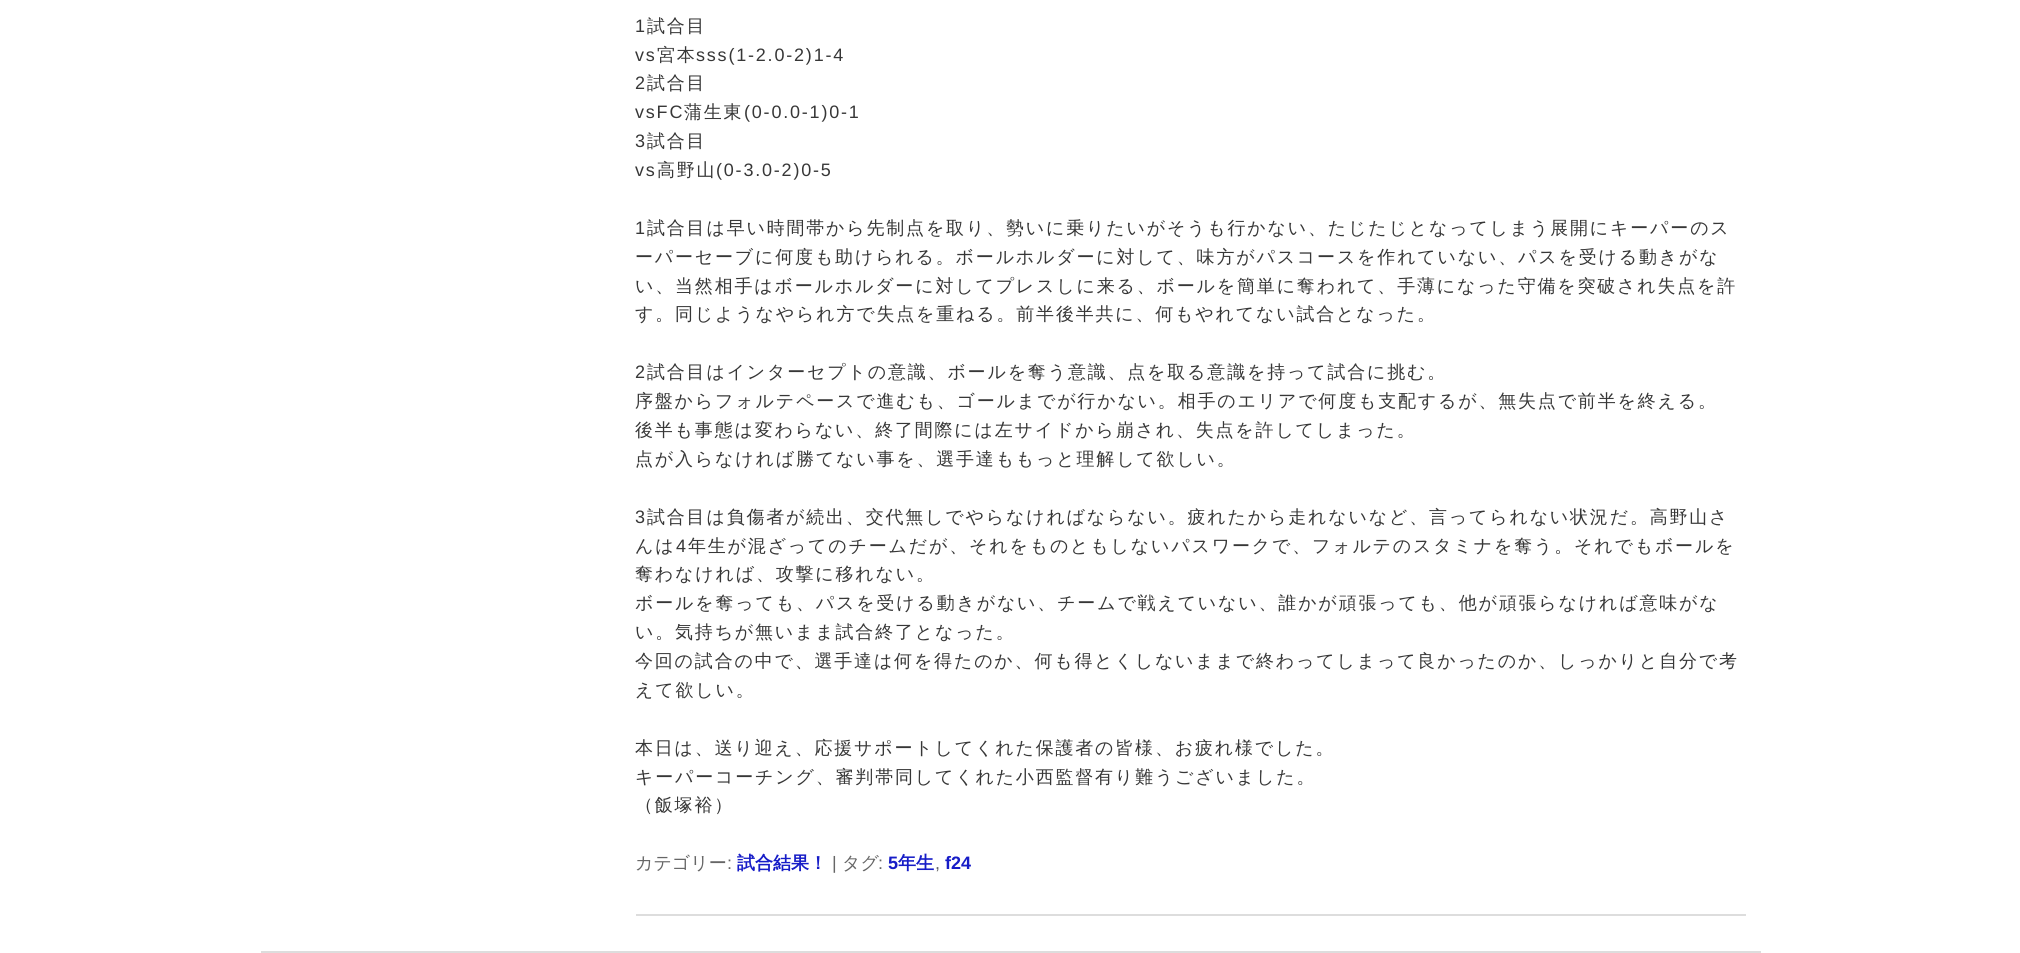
import math
import cairo

surface = cairo.ImageSurface(cairo.Format.RGB24, 2020, 953)
ctx = cairo.Context(surface)
options = cairo.FontOptions()
options.set_hint_metrics(cairo.HintMetrics.OFF)
options.set_hint_style(cairo.HintStyle.NONE)
ctx.set_font_options(options)
ctx.set_miter_limit(4)


def ink(r, g, b):
    ctx.set_source_rgb(r / 255, g / 255, b / 255)


def write(x, y, s, family, size, color, bold=False, italic=False):
    ctx.select_font_face(family, cairo.FontSlant.ITALIC if italic else cairo.FontSlant.NORMAL, cairo.FontWeight.BOLD if bold else cairo.FontWeight.NORMAL)
    ctx.set_font_size(size)
    ink(*color)
    ctx.move_to(x, y)
    ctx.show_text(s)


def write_spaced(x, y, s, letter, word):
    ctx.move_to(x, y)
    for ch in s:
        ctx.show_text(ch)
        ctx.rel_move_to(letter + word * (ch == ' '), 0)


def block(x, y, w, h, *color):
    ink(*color)
    ctx.rectangle(x, y, w, h)
    ctx.fill()


s1 = dict(family="WenQuanYi Zen Hei Medium", size=18, color=(102, 102, 102))
s2 = dict(family="Liberation Sans", size=18, color=(102, 102, 102))
s3 = dict(family="WenQuanYi Zen Hei", size=18, color=(22, 28, 199), bold=True)
s4 = dict(family="Liberation Sans", size=18, color=(22, 28, 199), bold=True)

ink(255, 255, 255)
ctx.paint()
block(636, 914, 1110, 2, 221, 221, 221)
ctx.select_font_face("Liberation Sans")
ctx.set_font_size(18)
ink(55, 55, 55)
write_spaced(635, 32, "1", 1.8, 0)
ctx.select_font_face("WenQuanYi Zen Hei Medium")
write_spaced(647, 32, "試合目", 1.8, 0)
ctx.select_font_face("Liberation Sans")
write_spaced(635, 61, "vs", 1.8, 0)
ctx.select_font_face("WenQuanYi Zen Hei Medium")
write_spaced(657, 61, "宮本", 1.8, 0)
ctx.select_font_face("Liberation Sans")
write_spaced(696, 61, "sss(1-2.0-2)1-4", 1.8, 0)
write_spaced(635, 89, "2", 1.8, 0)
ctx.select_font_face("WenQuanYi Zen Hei Medium")
write_spaced(647, 89, "試合目", 1.8, 0)
ctx.select_font_face("Liberation Sans")
write_spaced(635, 118, "vsFC", 1.8, 0)
ctx.select_font_face("WenQuanYi Zen Hei Medium")
write_spaced(684, 118, "蒲生東", 1.8, 0)
ctx.select_font_face("Liberation Sans")
write_spaced(744, 118, "(0-0.0-1)0-1", 1.8, 0)
write_spaced(635, 147, "3", 1.8, 0)
ctx.select_font_face("WenQuanYi Zen Hei Medium")
write_spaced(647, 147, "試合目", 1.8, 0)
ctx.select_font_face("Liberation Sans")
write_spaced(635, 176, "vs", 1.8, 0)
ctx.select_font_face("WenQuanYi Zen Hei Medium")
write_spaced(657, 176, "高野山", 1.8, 0)
ctx.select_font_face("Liberation Sans")
write_spaced(716, 176, "(0-3.0-2)0-5", 1.8, 0)
write_spaced(635, 234, "1", 1.8, 0)
ctx.select_font_face("WenQuanYi Zen Hei Medium")
write_spaced(647, 234, "試合目は早い時間帯から先制点を取り、勢いに乗りたいがそうも行かない、たじたじとなってしまう展開にキーパーのス", 1.8, 0)
write_spaced(635, 263, "ーパーセーブに何度も助けられる。ボールホルダーに対して、味方がパスコースを作れていない、パスを受ける動きがな", 1.8, 0)
write_spaced(635, 292, "い、当然相手はボールホルダーに対してプレスしに来る、ボールを簡単に奪われて、手薄になった守備を突破され失点を許", 1.8, 0)
write_spaced(635, 320, "す。同じようなやられ方で失点を重ねる。前半後半共に、何もやれてない試合となった。", 1.8, 0)
ctx.select_font_face("Liberation Sans")
write_spaced(635, 378, "2", 1.8, 0)
ctx.select_font_face("WenQuanYi Zen Hei Medium")
write_spaced(647, 378, "試合目はインターセプトの意識、ボールを奪う意識、点を取る意識を持って試合に挑む。", 1.8, 0)
write_spaced(635, 407, "序盤からフォルテペースで進むも、ゴールまでが行かない。相手のエリアで何度も支配するが、無失点で前半を終える。", 1.8, 0)
write_spaced(635, 436, "後半も事態は変わらない、終了間際には左サイドから崩され、失点を許してしまった。", 1.8, 0)
write_spaced(635, 465, "点が入らなければ勝てない事を、選手達ももっと理解して欲しい。", 1.8, 0)
ctx.select_font_face("Liberation Sans")
write_spaced(635, 523, "3", 1.8, 0)
ctx.select_font_face("WenQuanYi Zen Hei Medium")
write_spaced(647, 523, "試合目は負傷者が続出、交代無しでやらなければならない。疲れたから走れないなど、言ってられない状況だ。高野山さ", 1.8, 0)
write_spaced(635, 552, "んは", 1.8, 0)
ctx.select_font_face("Liberation Sans")
write_spaced(676, 552, "4", 1.8, 0)
ctx.select_font_face("WenQuanYi Zen Hei Medium")
write_spaced(688, 552, "年生が混ざってのチームだが、それをものともしないパスワークで、フォルテのスタミナを奪う。それでもボールを", 1.8, 0)
write_spaced(635, 580, "奪わなければ、攻撃に移れない。", 1.8, 0)
write_spaced(635, 609, "ボールを奪っても、パスを受ける動きがない、チームで戦えていない、誰かが頑張っても、他が頑張らなければ意味がな", 1.8, 0)
write_spaced(635, 638, "い。気持ちが無いまま試合終了となった。", 1.8, 0)
write_spaced(635, 667, "今回の試合の中で、選手達は何を得たのか、何も得とくしないままで終わってしまって良かったのか、しっかりと自分で考", 1.8, 0)
write_spaced(635, 696, "えて欲しい。", 1.8, 0)
write_spaced(635, 754, "本日は、送り迎え、応援サポートしてくれた保護者の皆様、お疲れ様でした。", 1.8, 0)
write_spaced(635, 783, "キーパーコーチング、審判帯同してくれた小西監督有り難うございました。", 1.8, 0)
write_spaced(635, 811, "（飯塚裕）", 1.8, 0)
write(635, 869, "カテゴリー", **s1)
write(727, 869, ":", **s2)
write(737, 869, "試合結果！", **s3)
write(832, 869, "|", **s2)
write(842, 869, "タグ", **s1)
write(878, 869, ":", **s2)
write(888, 869, "5", **s4)
write(898, 869, "年生", **s3)
write(945, 869, "f24", **s4)
write(935, 869, ",", **s2)
block(261, 951, 1500, 2, 221, 221, 221)
surface.write_to_png("screenshot.png")
